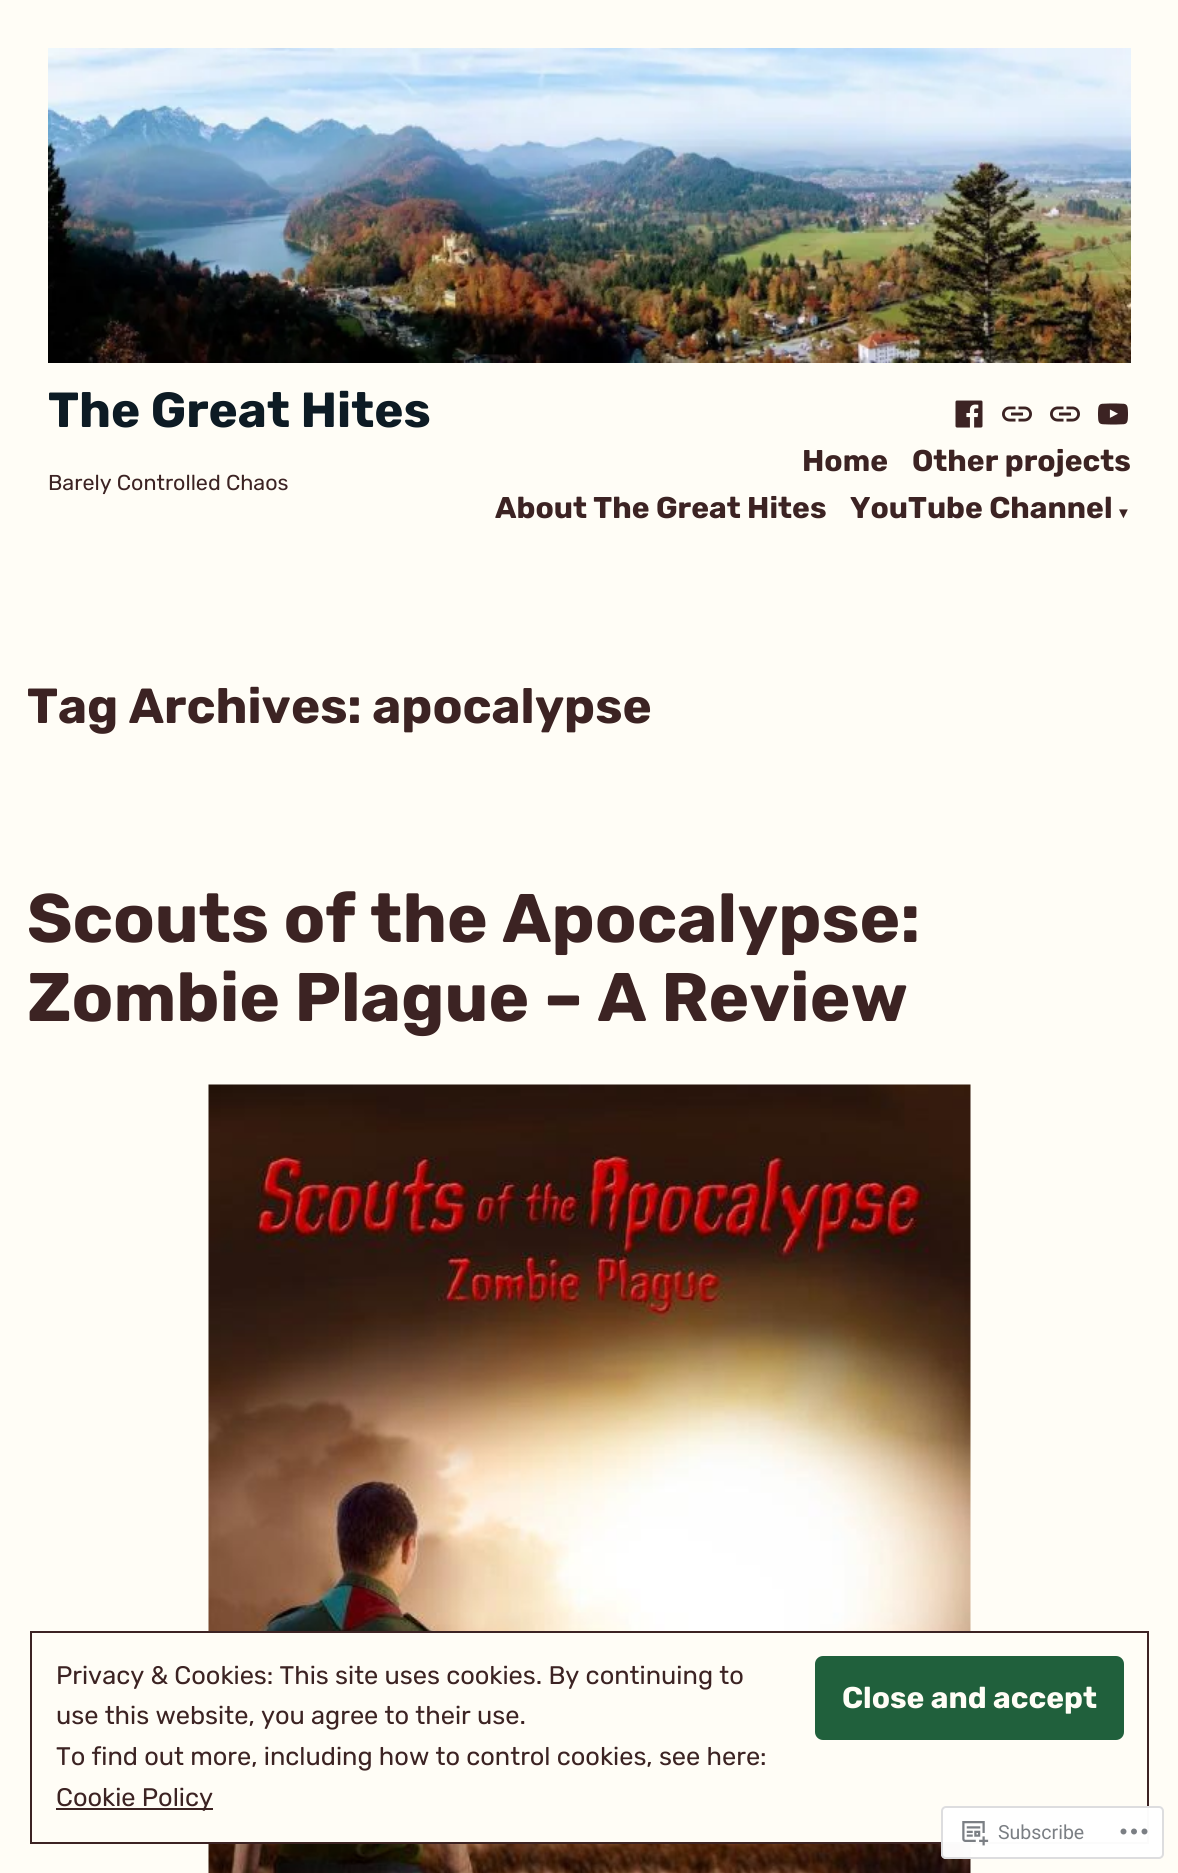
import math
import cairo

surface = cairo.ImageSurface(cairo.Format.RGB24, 1178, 1873)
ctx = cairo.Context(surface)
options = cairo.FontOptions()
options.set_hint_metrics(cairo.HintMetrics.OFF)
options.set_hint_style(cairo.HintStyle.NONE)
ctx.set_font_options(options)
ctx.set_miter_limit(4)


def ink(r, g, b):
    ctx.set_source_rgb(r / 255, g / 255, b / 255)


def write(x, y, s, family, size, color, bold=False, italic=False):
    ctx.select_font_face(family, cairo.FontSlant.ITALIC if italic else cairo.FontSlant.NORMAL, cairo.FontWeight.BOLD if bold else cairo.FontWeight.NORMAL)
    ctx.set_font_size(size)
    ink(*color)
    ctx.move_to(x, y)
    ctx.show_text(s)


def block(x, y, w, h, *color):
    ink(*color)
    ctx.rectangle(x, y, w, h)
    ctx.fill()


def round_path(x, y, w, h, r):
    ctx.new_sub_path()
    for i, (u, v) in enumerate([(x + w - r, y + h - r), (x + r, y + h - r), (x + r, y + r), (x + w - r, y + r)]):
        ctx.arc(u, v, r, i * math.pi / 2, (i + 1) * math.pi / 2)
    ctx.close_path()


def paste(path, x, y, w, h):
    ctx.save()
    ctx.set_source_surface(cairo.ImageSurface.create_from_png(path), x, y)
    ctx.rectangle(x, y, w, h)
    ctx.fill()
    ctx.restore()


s1 = dict(family="Rubik", size=49.25, color=(13, 27, 36), bold=True)
s2 = dict(family="Rubik", size=21.5, color=(60, 35, 35))
s3 = dict(family="Rubik", size=30, color=(60, 35, 35), bold=True)
s4 = dict(family="Liberation Sans", size=15, color=(60, 35, 35), bold=True)
s5 = dict(family="Rubik", size=49.25, color=(60, 35, 35), bold=True)
s6 = dict(family="Rubik", size=68.6, color=(60, 35, 35), bold=True)
s7 = dict(family="Rubik", size=25.4, color=(60, 35, 35))
s8 = dict(family="Rubik", size=30, color=(255, 253, 246), bold=True)
s9 = dict(family="Roboto", size=19.5, color=(123, 127, 132))

ink(255, 253, 246)
ctx.paint()
paste("pic1.png", 48, 48, 1083, 315)
write(48, 427, "The Great Hites", **s1)
paste("pic2.png", 955, 400, 28, 28)
paste("pic3.png", 1002, 406, 30, 16)
paste("pic3.png", 1050, 406, 30, 16)
paste("pic4.png", 1098, 403, 30, 22)
write(48, 490, "Barely Controlled Chaos", **s2)
write(802, 471, "Home", **s3)
write(912, 471, "Other projects", **s3)
write(495, 518, "About The Great Hites", **s3)
write(850, 518, "YouTube Channel", **s3)
write(1116, 518, "▼", **s4)
write(27, 723, "Tag Archives: apocalypse", **s5)
write(27, 942, "Scouts of the Apocalypse:", **s6)
write(27, 1021, "Zombie Plague – A Review", **s6)
paste("pic5.png", 208, 1084, 763, 789)
block(208, 1633, 763, 209, 255, 253, 246)
ctx.rectangle(31, 1632, 1117, 211)
ink(60, 35, 35)
ctx.stroke()
write(56, 1684, "Privacy & Cookies: This site uses cookies. By continuing to", **s7)
ink(32, 96, 60)
round_path(815, 1656, 309, 84, 8)
ctx.fill()
write(842, 1708, "Close and accept", **s8)
write(56, 1724, "use this website, you agree to their use.", **s7)
write(56, 1765, "To find out more, including how to control cookies, see here:", **s7)
block(56, 1808, 157, 2, 60, 35, 35)
write(56, 1806, "Cookie Policy", **s7)
ctx.set_source_rgba(1, 1, 1, 0.98)
round_path(941, 1806, 223, 53, 5)
ctx.fill()
round_path(942, 1807, 221, 51, 4)
ctx.set_source_rgba(0.863, 0.863, 0.871, 0.98)
ctx.stroke()
paste("pic6.png", 962, 1821, 27, 25)
write(998, 1839, "Subscribe", **s9)
paste("pic7.png", 1120, 1828, 28, 7)
surface.write_to_png("screenshot.png")
